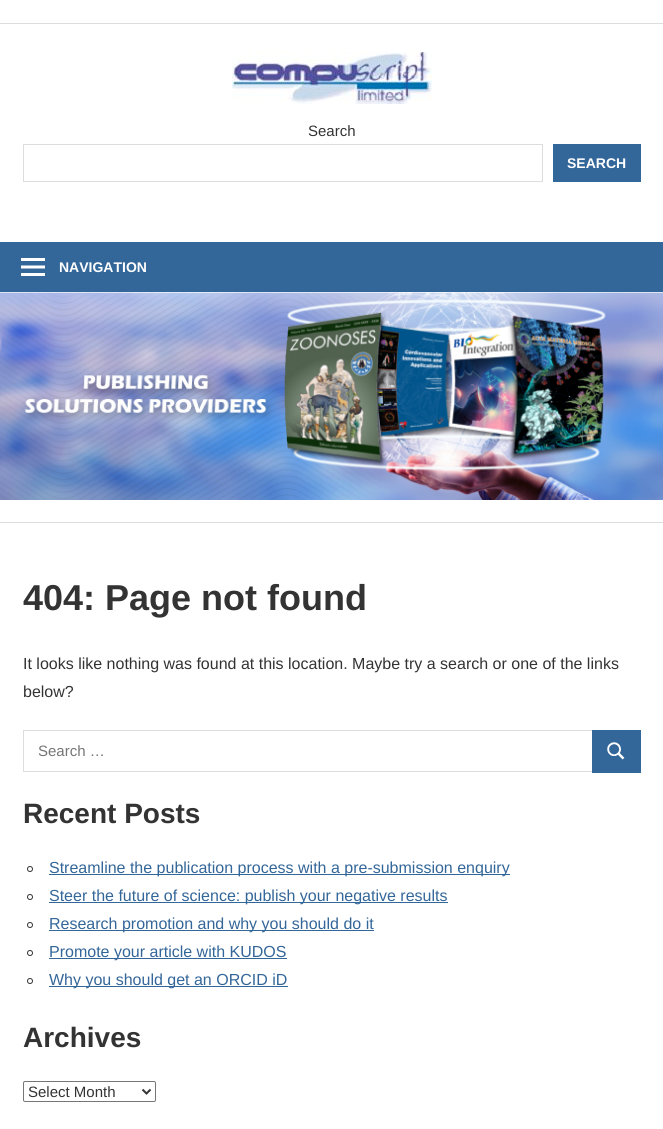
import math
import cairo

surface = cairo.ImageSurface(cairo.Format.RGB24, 663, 1129)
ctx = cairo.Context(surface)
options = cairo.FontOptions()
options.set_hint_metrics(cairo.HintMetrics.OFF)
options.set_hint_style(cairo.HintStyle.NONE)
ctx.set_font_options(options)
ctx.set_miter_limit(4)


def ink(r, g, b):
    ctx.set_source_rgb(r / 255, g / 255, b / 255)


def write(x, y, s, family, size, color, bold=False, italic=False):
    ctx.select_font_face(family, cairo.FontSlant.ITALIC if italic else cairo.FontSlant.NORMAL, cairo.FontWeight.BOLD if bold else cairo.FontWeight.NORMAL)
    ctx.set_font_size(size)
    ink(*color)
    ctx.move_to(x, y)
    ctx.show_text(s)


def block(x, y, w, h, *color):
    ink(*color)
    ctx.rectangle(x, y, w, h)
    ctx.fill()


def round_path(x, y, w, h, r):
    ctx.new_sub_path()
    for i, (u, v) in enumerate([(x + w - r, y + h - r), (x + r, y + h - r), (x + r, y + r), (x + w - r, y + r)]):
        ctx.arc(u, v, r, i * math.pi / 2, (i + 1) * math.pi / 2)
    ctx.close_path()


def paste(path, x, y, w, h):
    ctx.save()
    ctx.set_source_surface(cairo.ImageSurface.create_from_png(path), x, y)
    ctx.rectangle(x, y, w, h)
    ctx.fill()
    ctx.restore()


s1 = dict(family="Liberation Sans", size=15, color=(51, 51, 51))
s2 = dict(family="Liberation Sans", size=14, color=(255, 255, 255), bold=True)
s3 = dict(family="Liberation Sans", size=36, color=(51, 51, 51), bold=True)
s4 = dict(family="Liberation Sans", size=16, color=(51, 51, 51))
s5 = dict(family="Liberation Sans", size=15, color=(117, 117, 117))
s6 = dict(family="Liberation Sans", size=28, color=(51, 51, 51), bold=True)
s7 = dict(family="Liberation Sans", size=16, color=(51, 102, 153))

ink(255, 255, 255)
ctx.paint()
block(0, 23, 663, 1, 221, 221, 221)
paste("pic1.png", 232, 52, 200, 52)
write(308, 136, "Search", **s1)
ctx.rectangle(23.5, 144.5, 519, 37)
ink(221, 221, 221)
ctx.set_line_width(1)
ctx.stroke()
block(553, 144, 88, 38, 51, 102, 153)
write(567, 168, "SEARCH", **s2)
block(0, 242, 663, 50, 51, 102, 153)
paste("pic2.png", 21, 258, 24, 18)
write(59, 272, "NAVIGATION", **s2)
block(0, 522, 663, 1, 221, 221, 221)
paste("pic3.png", 0, 292, 663, 208)
write(23, 610, "404: Page not found", **s3)
write(23, 669, "It looks like nothing was found at this location. Maybe try a search or one of the links", **s4)
write(23, 697, "below?", **s4)
ctx.rectangle(23.5, 730.5, 569, 41)
ink(221, 221, 221)
ctx.stroke()
write(38, 756, "Search …", **s5)
block(592, 730, 49, 43, 51, 102, 153)
paste("pic4.png", 607, 742, 18, 18)
write(23, 823, "Recent Posts", **s6)
ctx.new_path()
ctx.arc(30, 869, 2.5, 0, 2 * math.pi)
ctx.stroke()
block(49, 874, 461, 1, 51, 102, 153)
write(49, 873, "Streamline the publication process with a pre-submission enquiry", **s7)
ctx.new_path()
ctx.arc(30, 897, 2.5, 0, 2 * math.pi)
ink(51, 51, 51)
ctx.stroke()
block(49, 902, 399, 1, 51, 102, 153)
write(49, 901, "Steer the future of science: publish your negative results", **s7)
ctx.new_path()
ctx.arc(30, 925, 2.5, 0, 2 * math.pi)
ink(51, 51, 51)
ctx.stroke()
block(49, 930, 325, 1, 51, 102, 153)
write(49, 929, "Research promotion and why you should do it", **s7)
ctx.new_path()
ctx.arc(30, 953, 2.5, 0, 2 * math.pi)
ink(51, 51, 51)
ctx.stroke()
block(49, 958, 238, 1, 51, 102, 153)
write(49, 957, "Promote your article with KUDOS", **s7)
ctx.new_path()
ctx.arc(30, 981, 2.5, 0, 2 * math.pi)
ink(51, 51, 51)
ctx.stroke()
block(49, 986, 239, 1, 51, 102, 153)
write(49, 985, "Why you should get an ORCID iD", **s7)
write(23, 1047, "Archives", **s6)
round_path(23.5, 1081.5, 132, 20, 1.5)
ink(118, 118, 118)
ctx.stroke()
ctx.new_path()
ctx.move_to(142.5, 1089.5)
ctx.line_to(146.5, 1093.5)
ctx.line_to(150.5, 1089.5)
ink(51, 51, 51)
ctx.set_line_width(2)
ctx.stroke()
write(28, 1097, "Select Month", **s1)
surface.write_to_png("screenshot.png")
